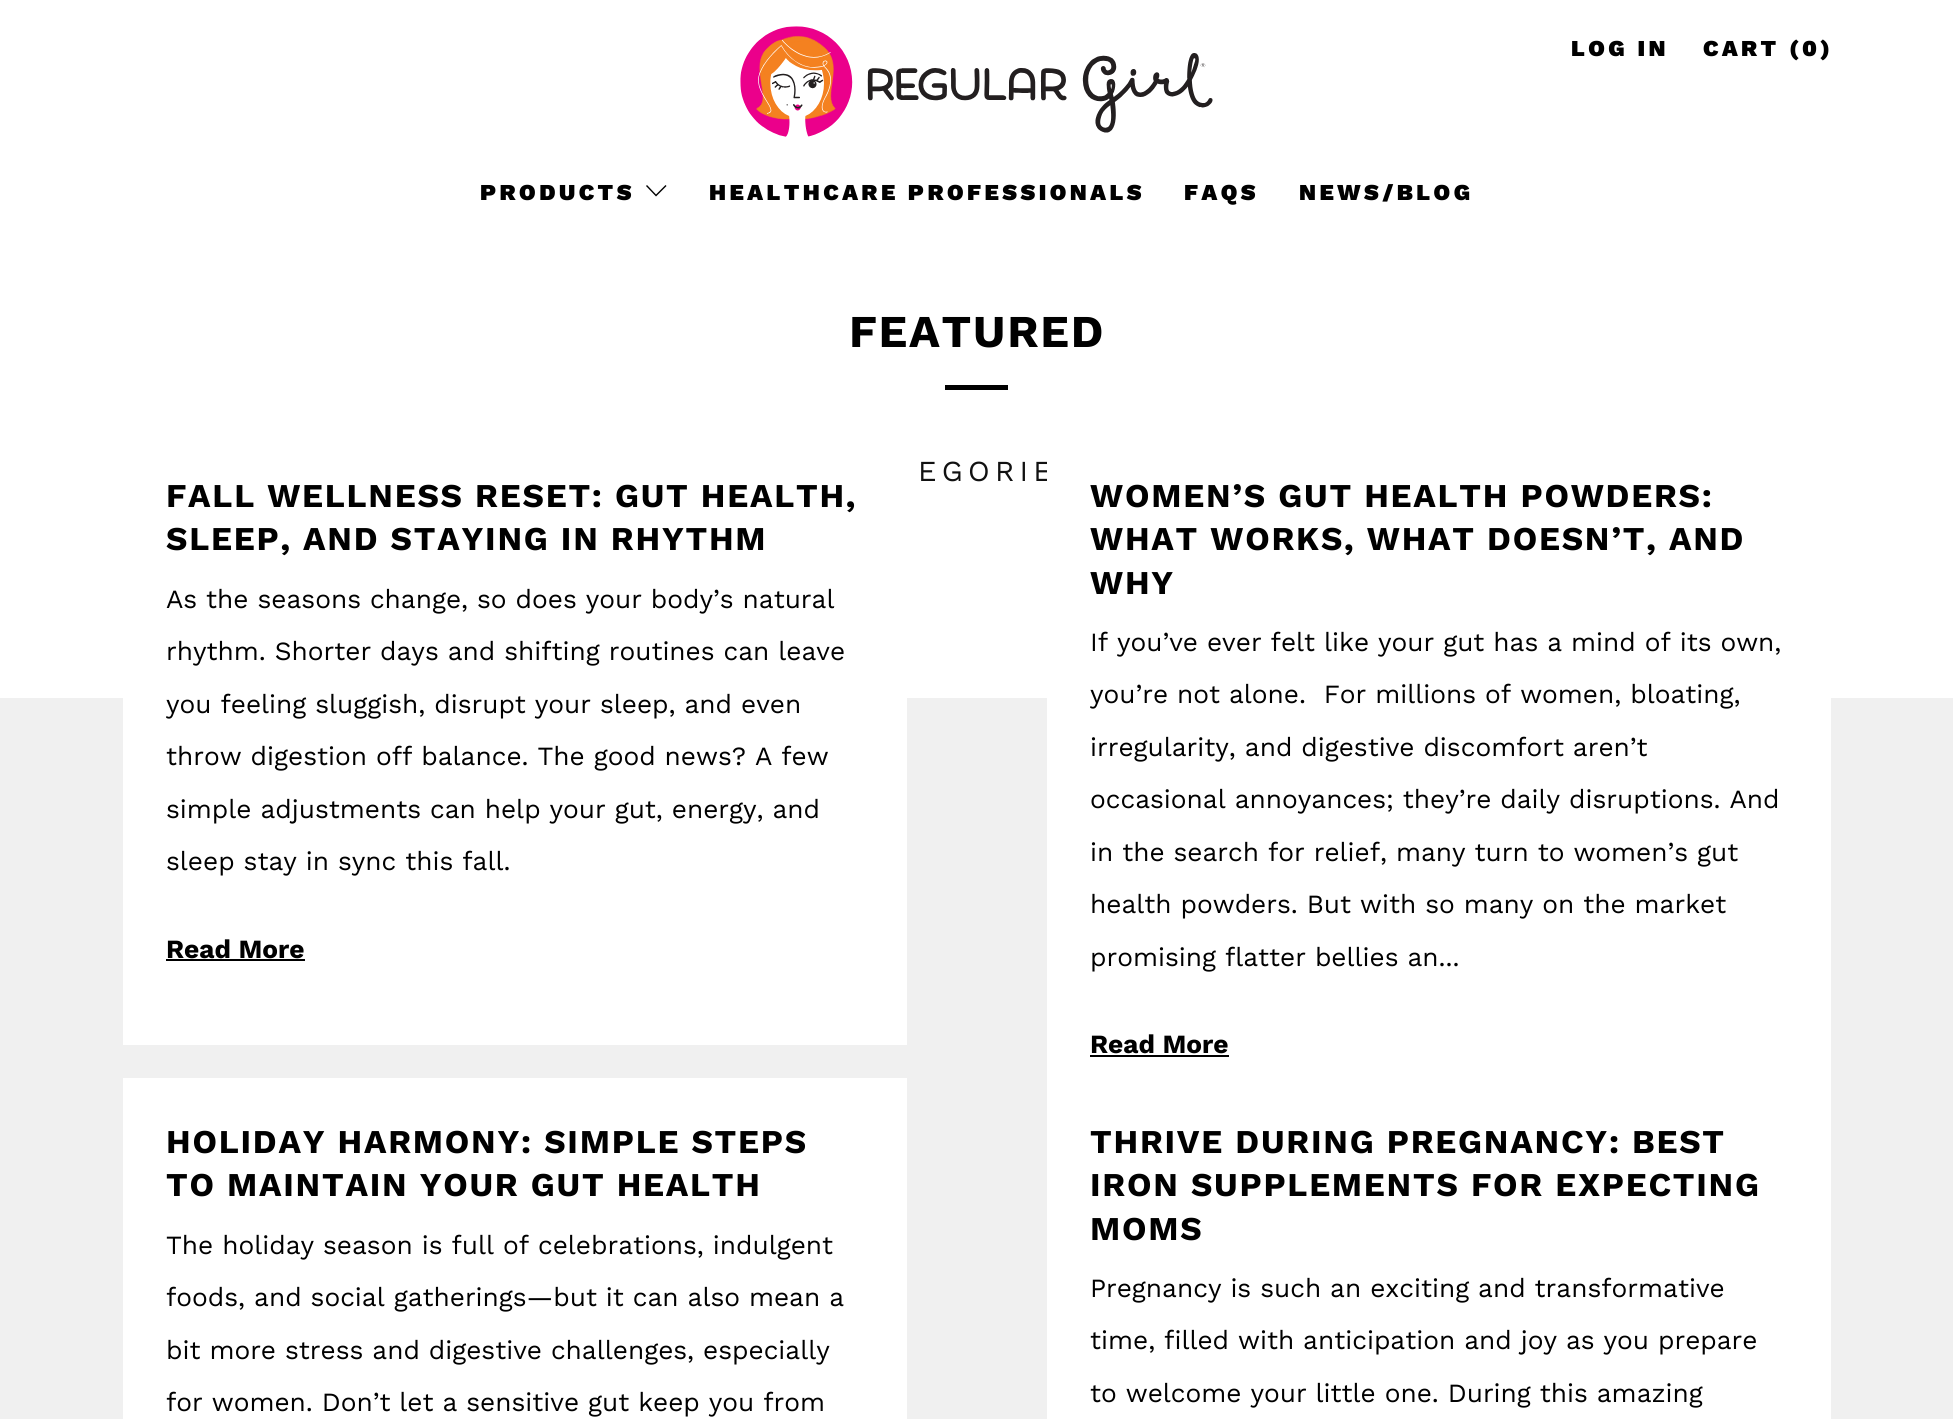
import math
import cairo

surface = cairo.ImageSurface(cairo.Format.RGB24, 1953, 1419)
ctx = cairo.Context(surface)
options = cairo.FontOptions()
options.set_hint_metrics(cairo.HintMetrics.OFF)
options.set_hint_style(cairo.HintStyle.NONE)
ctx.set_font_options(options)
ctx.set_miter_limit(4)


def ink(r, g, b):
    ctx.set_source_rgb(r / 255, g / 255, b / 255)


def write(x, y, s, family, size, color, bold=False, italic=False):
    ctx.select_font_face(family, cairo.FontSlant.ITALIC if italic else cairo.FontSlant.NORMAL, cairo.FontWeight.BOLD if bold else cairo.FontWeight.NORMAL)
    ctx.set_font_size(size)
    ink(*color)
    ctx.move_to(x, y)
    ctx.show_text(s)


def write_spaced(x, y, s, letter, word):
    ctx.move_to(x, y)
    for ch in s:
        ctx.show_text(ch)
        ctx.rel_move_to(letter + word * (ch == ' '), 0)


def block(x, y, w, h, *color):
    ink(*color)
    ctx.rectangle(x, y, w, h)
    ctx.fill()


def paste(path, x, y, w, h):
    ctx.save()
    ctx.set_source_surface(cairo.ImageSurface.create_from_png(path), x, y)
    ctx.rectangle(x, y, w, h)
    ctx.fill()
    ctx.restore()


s1 = dict(family="Work Sans", size=26.25, color=(0, 0, 0))
s2 = dict(family="Work Sans", size=26.25, color=(0, 0, 0), bold=True)

ink(255, 255, 255)
ctx.paint()
paste("pic1.png", 740, 26, 473, 111)
ctx.select_font_face("Work Sans Black")
ctx.set_font_size(22.75)
ink(0, 0, 0)
write_spaced(1571, 56, "LOG IN", 3.5, 0)
write_spaced(1703, 56, "CART (0)", 3.5, 0)
write_spaced(480, 200, "PRODUCTS", 3.5, 0)
ctx.new_path()
ctx.move_to(647, 185)
ctx.line_to(646, 186)
ctx.line_to(656, 196.5)
ctx.line_to(666.5, 186)
ctx.line_to(665.5, 185)
ctx.line_to(656, 194.5)
ctx.close_path()
ctx.fill()
write_spaced(709, 200, "HEALTHCARE PROFESSIONALS", 3.5, 0)
write_spaced(1184, 200, "FAQS", 3.5, 0)
write_spaced(1299, 200, "NEWS/BLOG", 3.5, 0)
ctx.select_font_face("Work Sans", cairo.FontSlant.NORMAL, cairo.FontWeight.BOLD)
ctx.set_font_size(45.5)
write_spaced(849, 347, "FEATURED", 1.75, 0)
block(945, 385, 63, 5, 0, 0, 0)
ctx.select_font_face("Work Sans")
ctx.set_font_size(29)
ink(17, 17, 17)
write_spaced(918, 481, "EGORIE", 5.25, 0)
block(0, 698, 1953, 721, 240, 240, 240)
block(123, 698, 784, 347, 255, 255, 255)
ctx.select_font_face("Work Sans", cairo.FontSlant.NORMAL, cairo.FontWeight.BOLD)
ctx.set_font_size(33.25)
ink(0, 0, 0)
write_spaced(166, 507, "FALL WELLNESS RESET: GUT HEALTH,", 1.75, 0)
write_spaced(166, 550, "SLEEP, AND STAYING IN RHYTHM", 1.75, 0)
write(166, 608, "As the seasons change, so does your body’s natural", **s1)
write(166, 660, "rhythm. Shorter days and shifting routines can leave", **s1)
write(166, 713, "you feeling sluggish, disrupt your sleep, and even", **s1)
write(166, 765, "throw digestion off balance. The good news? A few", **s1)
write(166, 818, "simple adjustments can help your gut, energy, and", **s1)
write(166, 870, "sleep stay in sync this fall.", **s1)
write(166, 958, "Read More", **s2)
block(166, 959, 139, 2, 0, 0, 0)
block(1047, 461, 784, 958, 255, 255, 255)
ctx.set_font_size(33.25)
ink(0, 0, 0)
write_spaced(1090, 507, "WOMEN’S GUT HEALTH POWDERS:", 1.75, 0)
write_spaced(1090, 550, "WHAT WORKS, WHAT DOESN’T, AND", 1.75, 0)
write_spaced(1090, 594, "WHY", 1.75, 0)
write(1090, 651, "If you’ve ever felt like your gut has a mind of its own,", **s1)
write(1090, 703, "you’re not alone.  For millions of women, bloating,", **s1)
write(1090, 756, "irregularity, and digestive discomfort aren’t", **s1)
write(1090, 808, "occasional annoyances; they’re daily disruptions. And", **s1)
write(1090, 861, "in the search for relief, many turn to women’s gut", **s1)
write(1090, 913, "health powders. But with so many on the market", **s1)
write(1090, 966, "promising flatter bellies an...", **s1)
write(1090, 1053, "Read More", **s2)
block(1090, 1055, 139, 2, 0, 0, 0)
block(123, 1078, 784, 341, 255, 255, 255)
ctx.set_font_size(33.25)
ink(0, 0, 0)
write_spaced(166, 1153, "HOLIDAY HARMONY: SIMPLE STEPS", 1.75, 0)
write_spaced(166, 1196, "TO MAINTAIN YOUR GUT HEALTH", 1.75, 0)
write(166, 1254, "The holiday season is full of celebrations, indulgent", **s1)
write(166, 1306, "foods, and social gatherings—but it can also mean a", **s1)
write(166, 1359, "bit more stress and digestive challenges, especially", **s1)
write(166, 1411, "for women. Don’t let a sensitive gut keep you from", **s1)
ctx.select_font_face("Work Sans", cairo.FontSlant.NORMAL, cairo.FontWeight.BOLD)
ctx.set_font_size(33.25)
write_spaced(1090, 1153, "THRIVE DURING PREGNANCY: BEST", 1.75, 0)
write_spaced(1090, 1196, "IRON SUPPLEMENTS FOR EXPECTING", 1.75, 0)
write_spaced(1090, 1240, "MOMS", 1.75, 0)
write(1090, 1297, "Pregnancy is such an exciting and transformative", **s1)
write(1090, 1349, "time, filled with anticipation and joy as you prepare", **s1)
write(1090, 1402, "to welcome your little one. During this amazing", **s1)
surface.write_to_png("screenshot.png")
